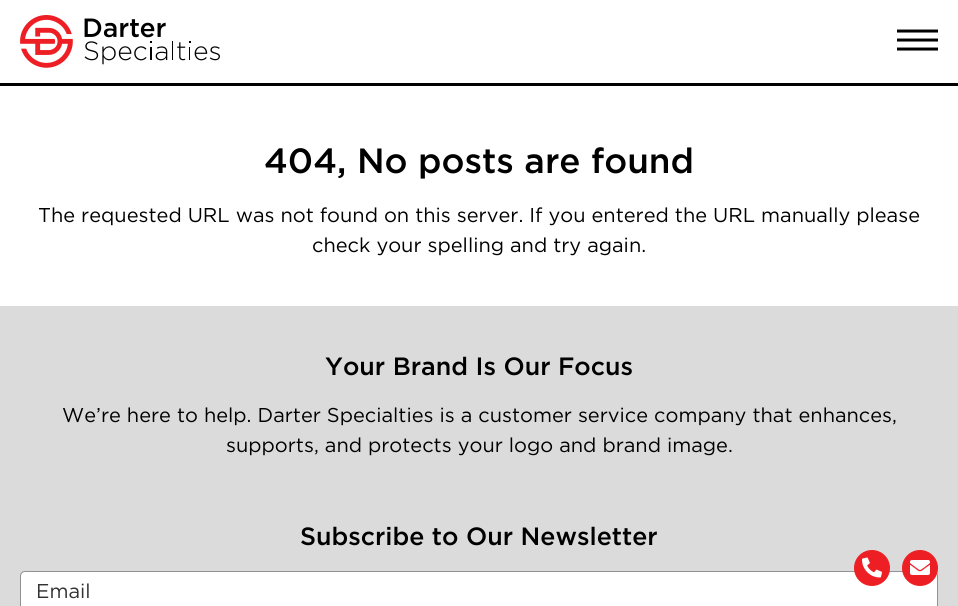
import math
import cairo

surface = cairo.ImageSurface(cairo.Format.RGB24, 958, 606)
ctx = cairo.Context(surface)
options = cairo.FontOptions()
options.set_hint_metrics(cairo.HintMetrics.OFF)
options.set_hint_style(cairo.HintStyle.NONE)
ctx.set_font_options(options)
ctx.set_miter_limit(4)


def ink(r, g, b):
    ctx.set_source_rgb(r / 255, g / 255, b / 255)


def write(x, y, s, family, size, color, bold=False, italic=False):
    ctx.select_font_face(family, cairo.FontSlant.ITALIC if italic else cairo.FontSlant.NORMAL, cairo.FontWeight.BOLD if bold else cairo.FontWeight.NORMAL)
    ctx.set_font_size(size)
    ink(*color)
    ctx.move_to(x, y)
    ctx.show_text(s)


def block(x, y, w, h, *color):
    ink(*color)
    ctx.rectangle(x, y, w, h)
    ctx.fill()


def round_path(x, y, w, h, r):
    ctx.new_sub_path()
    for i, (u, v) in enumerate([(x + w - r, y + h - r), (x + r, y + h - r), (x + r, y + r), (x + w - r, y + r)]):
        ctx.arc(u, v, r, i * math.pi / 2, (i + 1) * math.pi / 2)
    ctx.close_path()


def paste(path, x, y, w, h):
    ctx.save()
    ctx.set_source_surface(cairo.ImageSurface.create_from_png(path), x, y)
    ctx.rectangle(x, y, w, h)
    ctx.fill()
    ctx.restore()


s1 = dict(family="Gotham Medium", size=35, color=(0, 0, 0))
s2 = dict(family="Gotham", size=20, color=(0, 0, 0))
s3 = dict(family="Gotham Medium", size=25, color=(0, 0, 0))
s4 = dict(family="Gotham", size=20, color=(51, 51, 51))

ink(255, 255, 255)
ctx.paint()
block(0, 83, 958, 3, 0, 0, 0)
paste("pic1.png", 20, 15, 200, 53)
ctx.save()
ctx.rectangle(897, 23, 41, 36)
ctx.clip()
ctx.new_path()
ctx.move_to(897, 31)
ctx.line_to(938, 31)
ctx.move_to(897, 40)
ctx.line_to(938, 40)
ctx.move_to(897, 49)
ctx.line_to(938, 49)
ctx.set_line_width(3)
ctx.set_line_cap(cairo.LineCap.ROUND)
ctx.stroke()
ctx.restore()
write(264, 173, "404, No posts are found", **s1)
write(38, 222, "The requested URL was not found on this server. If you entered the URL manually please", **s2)
write(312, 252, "check your spelling and try again.", **s2)
block(0, 306, 958, 300, 219, 219, 219)
write(325, 375, "Your Brand Is Our Focus", **s3)
write(62, 422, "We’re here to help. Darter Specialties is a customer service company that enhances,", **s2)
write(226, 452, "supports, and protects your logo and brand image.", **s2)
write(300, 545, "Subscribe to Our Newsletter", **s3)
ink(255, 255, 255)
round_path(20.5, 571.5, 917, 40, 4.5)
ctx.fill_preserve()
ink(146, 146, 146)
ctx.set_line_width(1)
ctx.stroke()
write(36, 598, "Email", **s4)
ink(237, 31, 36)
ctx.new_path()
ctx.arc(872, 568, 18, 0, 2 * math.pi)
ctx.fill()
paste("pic2.png", 862, 557, 20, 21)
ctx.arc(920, 568, 18, 0, 2 * math.pi)
ctx.fill()
paste("pic3.png", 910, 560, 20, 15)
surface.write_to_png("screenshot.png")
